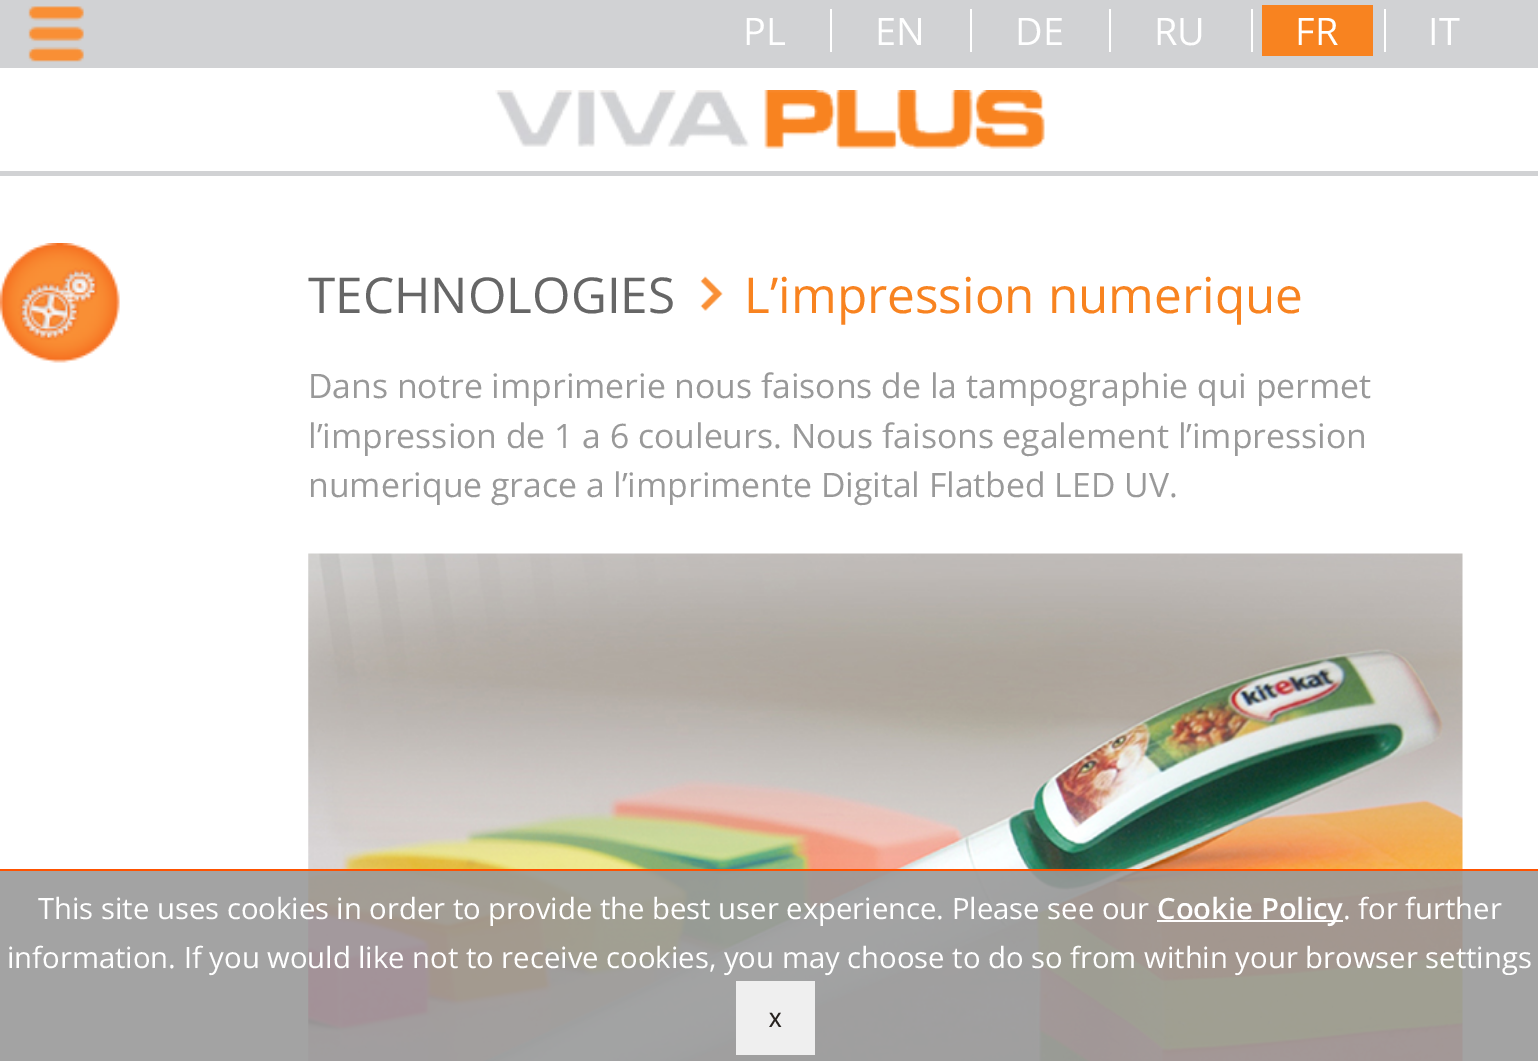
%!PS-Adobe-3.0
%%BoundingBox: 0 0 1538 1061
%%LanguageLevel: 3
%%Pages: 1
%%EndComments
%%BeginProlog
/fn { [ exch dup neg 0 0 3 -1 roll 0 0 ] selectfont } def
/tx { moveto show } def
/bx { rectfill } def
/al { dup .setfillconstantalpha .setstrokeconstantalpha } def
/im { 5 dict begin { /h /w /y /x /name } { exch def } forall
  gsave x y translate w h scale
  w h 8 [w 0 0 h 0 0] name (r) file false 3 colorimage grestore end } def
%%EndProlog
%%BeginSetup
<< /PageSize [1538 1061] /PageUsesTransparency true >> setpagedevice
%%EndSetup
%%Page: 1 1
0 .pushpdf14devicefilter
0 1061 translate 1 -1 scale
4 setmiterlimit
1 setgray
0 0 1538 1061 bx
0.82 0.824 0.831 setrgbcolor
0 0 1538 68 bx
(image0.raw) 28 6 56 56 im
1 setgray
830 9 2 43 bx
/OpenSans-Regular 38 fn
(PL) 743 45 tx
970 9 2 43 bx
(EN) 875 45 tx
1109 9 2 43 bx
(DE) 1015 45 tx
1251 9 2 43 bx
(RU) 1154 45 tx
1384 9 2 43 bx
0.973 0.514 0.125 setrgbcolor
1262 5 111 51 bx
1 setgray
(FR) 1295 45 tx
(IT) 1428 45 tx
0.82 0.824 0.831 setrgbcolor
0 171 1538 5 bx
(image1.raw) 495 90 550 59 im
(image2.raw) 0 243 120 120 im
/OpenSans-Regular 49.5 fn
0.4 setgray
(TECHNOLOGIES) 308 313 tx
(image3.raw) 700 276 23 35 im
0.973 0.514 0.125 setrgbcolor
(L’impression numerique) 744 313 tx
/OpenSans-Regular 33.75 fn
0.6 setgray
(Dans notre imprimerie nous faisons de la tampographie qui permet) 308 398 tx
(l’impression de 1 a 6 couleurs. Nous faisons egalement l’impression) 308 448 tx
(numerique grace a l’imprimente Digital Flatbed LED UV.) 308 497 tx
(image4.raw) 308 553 1155 508 im
0.9 al
0 871 1538 190 bx
1 al
1 0.322 0 setrgbcolor
0 869 1538 2 bx
/OpenSans-Regular 29.25 fn
1 setgray
(This site uses cookies in order to provide the best user experience. Please see our) 38 919 tx
1157 920 186 2 bx
/OpenSans-SemiBold 29.25 fn
(Cookie Policy) 1157 919 tx
/OpenSans-Regular 29.25 fn
(. for further) 1343 919 tx
(information. If you would like not to receive cookies, you may choose to do so from within your browser settings) 7 968 tx
0.937 setgray
736 981 79 74 bx
/OpenSans-SemiBold 20 fn
0.153 0.133 0.122 setrgbcolor
(X) 769 1027 tx
.poppdf14devicefilter showpage
%%EOF
